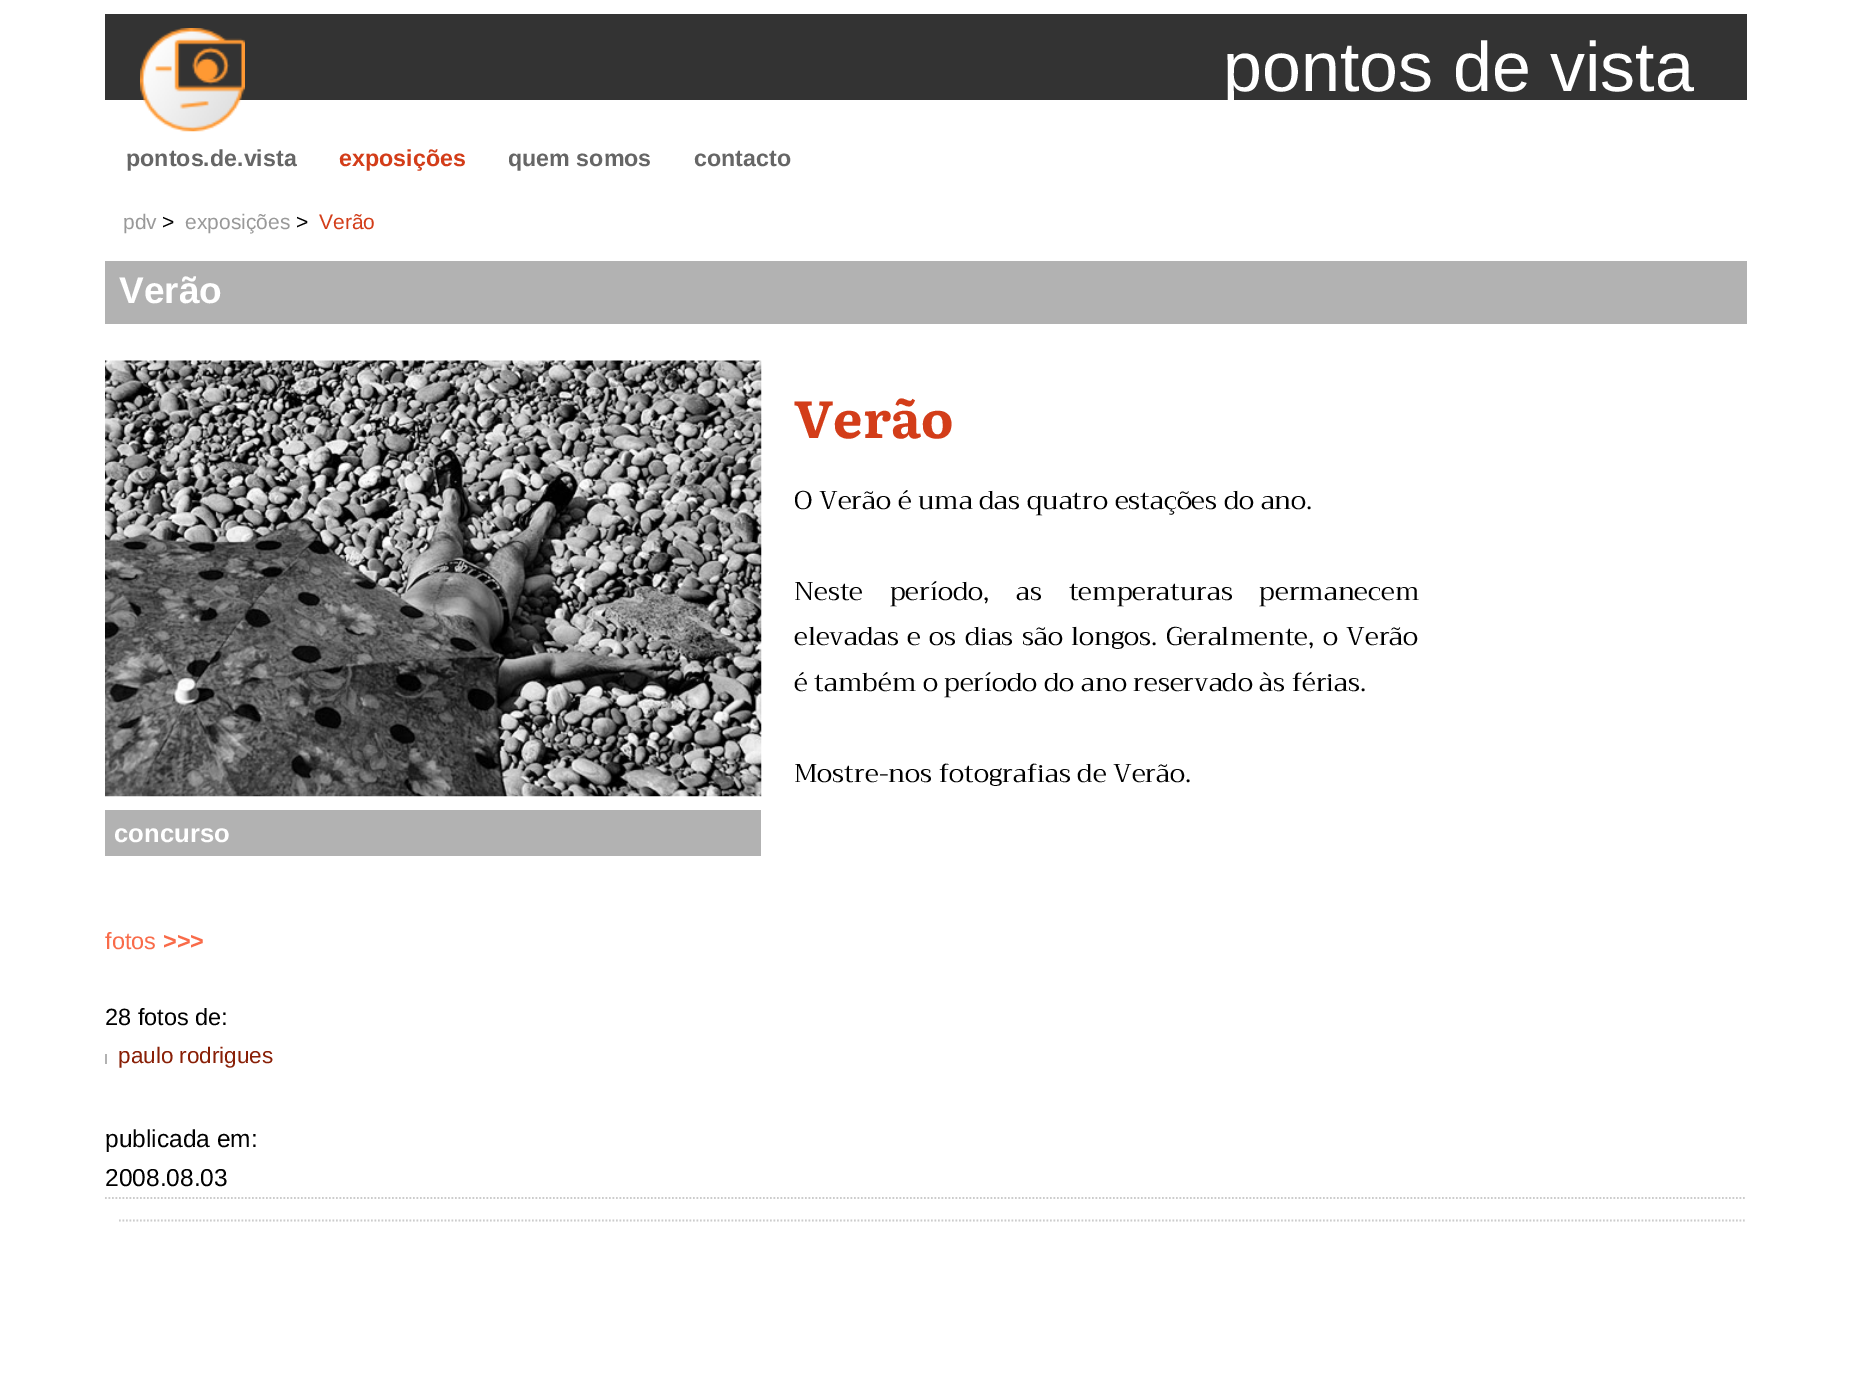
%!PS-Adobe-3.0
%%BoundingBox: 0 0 1850 1378
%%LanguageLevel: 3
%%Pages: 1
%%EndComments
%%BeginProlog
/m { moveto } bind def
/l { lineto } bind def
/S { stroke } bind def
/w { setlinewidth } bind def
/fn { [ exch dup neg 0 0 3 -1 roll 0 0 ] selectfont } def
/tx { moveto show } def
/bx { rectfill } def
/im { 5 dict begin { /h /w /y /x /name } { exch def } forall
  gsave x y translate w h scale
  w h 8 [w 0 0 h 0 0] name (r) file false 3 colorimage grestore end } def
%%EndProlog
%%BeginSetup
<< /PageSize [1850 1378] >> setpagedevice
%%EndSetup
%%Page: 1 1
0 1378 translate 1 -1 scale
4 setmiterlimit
1 setgray
0 0 1850 1378 bx
0.2 setgray
105 14 1642 86 bx
(image0.raw) 140 28 105 104 im
/LiberationSans-Regular 70 fn
1 setgray
(pontos de vista) 1223 91 tx
/LiberationSans-Bold 23.25 fn
0.4 setgray
(pontos.de.vista) 126 166 tx
0.827 0.239 0.098 setrgbcolor
(exposições) 339 166 tx
0.4 setgray
(quem somos) 508 166 tx
(contacto) 694 166 tx
/LiberationSans-Regular 21 fn
0.6 setgray
(pdv) 123 229 tx
0 setgray
(>) 162 229 tx
0.6 setgray
(exposições) 185 229 tx
0 setgray
(>) 296 229 tx
0.827 0.239 0.098 setrgbcolor
(Verão) 319 229 tx
0.698 setgray
105 261 1642 63 bx
/LiberationSans-Bold 37 fn
1 setgray
(Verão) 119 303 tx
/Literata-Bold 52 fn
0.827 0.239 0.098 setrgbcolor
(Verão) 794 438 tx
/Trirong-Regular 25.7 fn
0 setgray
(O Verão é uma das quatro estações do ano.) 794 509 tx
794 600 m 20 0 32 (Neste período, as temperaturas permanecem) widthshow
794 645 m 1.75 0 32 (elevadas e os dias são longos. Geralmente, o Verão) widthshow
(é também o período do ano reservado às férias.) 794 691 tx
(Mostre-nos fotografias de Verão.) 794 782 tx
(image1.raw) 105 360 657 437 im
0.698 setgray
105 810 656 46 bx
/LiberationSans-Bold 25.7 fn
1 setgray
(concurso) 114 842 tx
/LiberationSans-Regular 23.5 fn
0.976 0.42 0.286 setrgbcolor
(fotos) 105 949 tx
/LiberationSans-Bold 23.5 fn
(>>>) 163 949 tx
/LiberationSans-Regular 23.5 fn
0 setgray
(28 fotos de:) 105 1025 tx
0.698 setgray
105 1054 2 10 bx
/LiberationSans-Regular 22.5 fn
0.537 0.122 0.024 setrgbcolor
(paulo rodrigues) 118 1063 tx
/LiberationSans-Regular 24.5 fn
0 setgray
(publicada em:) 105 1147 tx
(2008.08.03) 105 1186 tx
0.8 setgray
1.8 w
[1.75 1.75] 0 setdash
105 1198 m 1746.5 1198 l S
119 1220.5 m 1746.5 1220.5 l S
showpage
%%EOF
